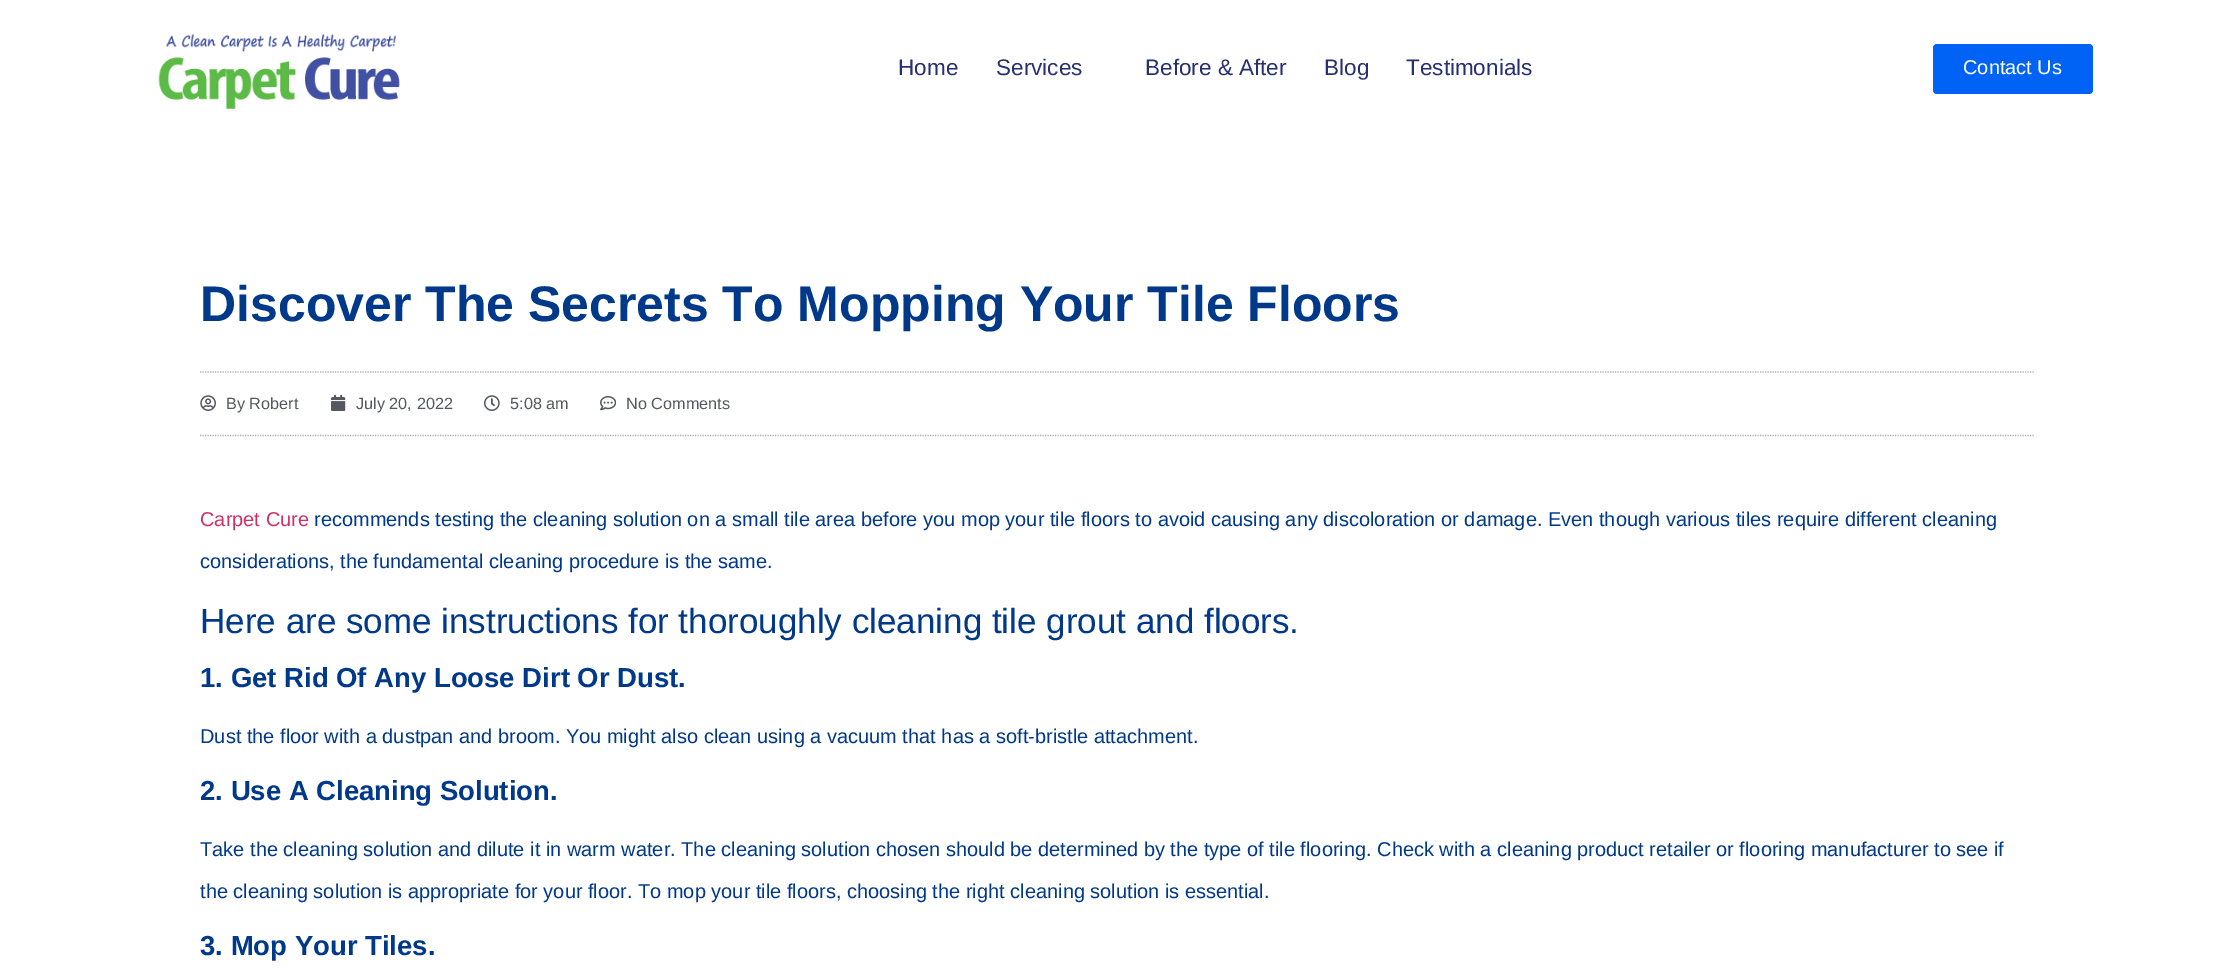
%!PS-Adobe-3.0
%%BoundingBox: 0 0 2235 976
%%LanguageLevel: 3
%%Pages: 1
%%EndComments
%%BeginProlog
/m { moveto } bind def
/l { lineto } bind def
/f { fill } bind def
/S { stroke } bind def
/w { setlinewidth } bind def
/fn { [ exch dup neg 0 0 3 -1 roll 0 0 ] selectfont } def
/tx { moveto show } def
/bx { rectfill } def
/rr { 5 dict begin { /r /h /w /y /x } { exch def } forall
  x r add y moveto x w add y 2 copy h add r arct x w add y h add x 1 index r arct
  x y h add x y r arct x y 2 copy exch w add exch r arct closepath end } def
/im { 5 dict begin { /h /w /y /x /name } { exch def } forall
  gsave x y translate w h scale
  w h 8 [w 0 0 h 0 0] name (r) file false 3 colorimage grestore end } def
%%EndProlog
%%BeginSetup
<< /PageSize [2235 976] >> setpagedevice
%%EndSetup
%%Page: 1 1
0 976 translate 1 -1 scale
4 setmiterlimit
1 setgray
0 0 2235 976 bx
(image0.raw) 158 33 242 76 im
/LiberationSans-Regular 22.5 fn
0.153 0.192 0.443 setrgbcolor
(Home) 898 75 tx
(Services) 996 75 tx
(Before & After) 1145 75 tx
(Blog) 1324 75 tx
(Testimonials) 1406 75 tx
0 0.388 0.965 setrgbcolor
1933 44 160 50 4 rr f
/LiberationSans-Regular 20 fn
1 setgray
(Contact Us) 1963 74 tx
/LiberationSans-Bold 50 fn
0 0.22 0.541 setrgbcolor
(Discover The Secrets To Mopping Your Tile Floors) 200 321 tx
0.686 setgray
1.2 w
[1.25 1.25] 0 setdash
200 372 m 2035 372 l S
200 435.5 m 2035 435.5 l S
(image1.raw) 200 395 16 16 im
/LiberationSans-Regular 16.25 fn
0.329 0.349 0.373 setrgbcolor
(By Robert) 226 409 tx
(image2.raw) 331 395 15 16 im
(July 20, 2022) 356 409 tx
(image3.raw) 484 395 16 16 im
(5:08 am) 510 409 tx
(image4.raw) 600 396 16 15 im
(No Comments) 626 409 tx
/LiberationSans-Regular 20 fn
0.8 0.2 0.4 setrgbcolor
(Carpet Cure) 200 526 tx
0 0.22 0.541 setrgbcolor
(recommends testing the cleaning solution on a small tile area before you mop your tile floors to avoid causing any discoloration or damage. Even though various tiles require different cleaning) 314 526 tx
(considerations, the fundamental cleaning procedure is the same.) 200 568 tx
/LiberationSans-Regular 35 fn
(Here are some instructions for thoroughly cleaning tile grout and floors.) 200 633 tx
/LiberationSans-Bold 27.5 fn
(1. Get Rid Of Any Loose Dirt Or Dust.) 200 687 tx
/LiberationSans-Regular 20 fn
(Dust the floor with a dustpan and broom. You might also clean using a vacuum that has a soft-bristle attachment.) 200 743 tx
/LiberationSans-Bold 27.5 fn
(2. Use A Cleaning Solution.) 200 800 tx
/LiberationSans-Regular 20 fn
(Take the cleaning solution and dilute it in warm water. The cleaning solution chosen should be determined by the type of tile flooring. Check with a cleaning product retailer or flooring manufacturer to see if) 200 856 tx
(the cleaning solution is appropriate for your floor. To mop your tile floors, choosing the right cleaning solution is essential.) 200 898 tx
/LiberationSans-Bold 27.5 fn
(3. Mop Your Tiles.) 200 955 tx
showpage
%%EOF
